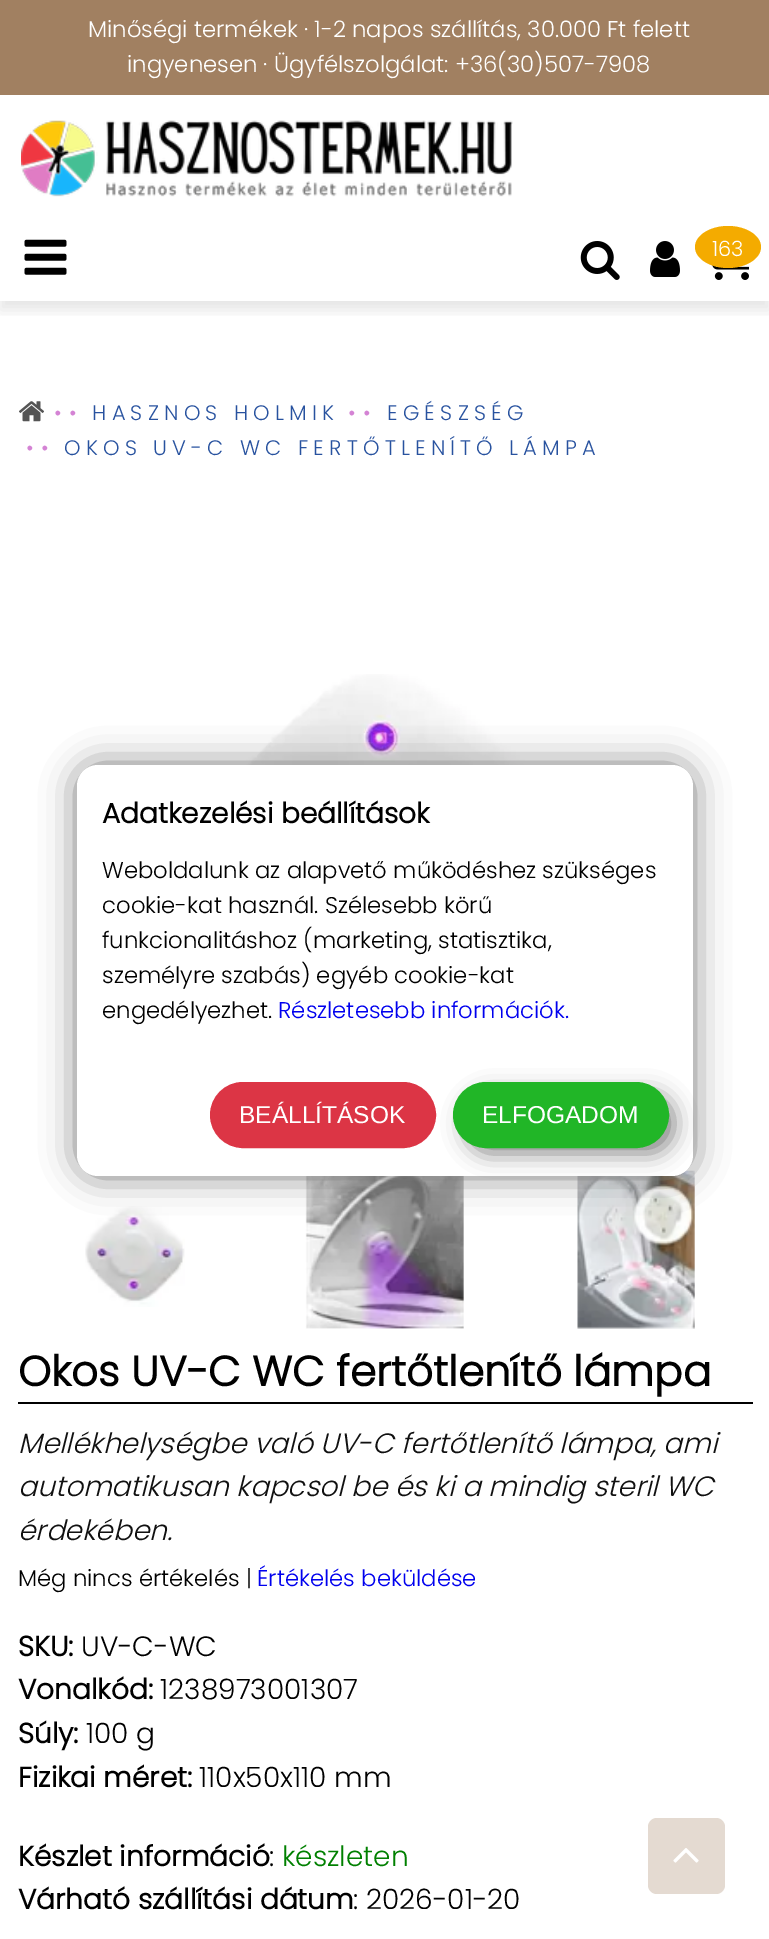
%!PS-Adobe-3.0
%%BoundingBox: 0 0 769 1939
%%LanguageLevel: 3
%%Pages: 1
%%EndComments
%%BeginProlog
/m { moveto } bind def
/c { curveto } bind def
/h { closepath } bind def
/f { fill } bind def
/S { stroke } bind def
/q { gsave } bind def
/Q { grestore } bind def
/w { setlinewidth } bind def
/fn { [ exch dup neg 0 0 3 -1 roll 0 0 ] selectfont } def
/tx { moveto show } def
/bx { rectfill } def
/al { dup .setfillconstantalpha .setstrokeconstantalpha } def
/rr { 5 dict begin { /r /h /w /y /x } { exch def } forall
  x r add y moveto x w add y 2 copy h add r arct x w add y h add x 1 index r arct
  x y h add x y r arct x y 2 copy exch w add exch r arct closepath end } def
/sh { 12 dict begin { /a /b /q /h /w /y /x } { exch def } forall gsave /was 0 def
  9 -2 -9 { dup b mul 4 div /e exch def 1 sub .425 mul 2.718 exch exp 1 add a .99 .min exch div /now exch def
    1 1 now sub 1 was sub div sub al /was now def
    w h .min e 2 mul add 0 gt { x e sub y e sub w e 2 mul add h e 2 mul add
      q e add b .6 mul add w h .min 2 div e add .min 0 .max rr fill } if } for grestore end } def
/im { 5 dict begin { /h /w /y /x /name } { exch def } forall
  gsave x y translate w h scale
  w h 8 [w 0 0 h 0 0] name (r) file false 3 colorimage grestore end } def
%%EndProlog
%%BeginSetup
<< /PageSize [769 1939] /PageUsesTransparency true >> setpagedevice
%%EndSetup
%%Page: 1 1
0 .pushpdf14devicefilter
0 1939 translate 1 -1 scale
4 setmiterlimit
1 setgray
0 0 769 1939 bx
0.631 0.502 0.38 setrgbcolor
0 0 769 95 bx
/Poppins-Light 22.75 fn
1 setgray
(Minőségi termékek · 1-2 napos szállítás, 30.000 Ft felett) 88 37 tx
(ingyenesen · Ügyfélszolgálat: +36\(30\)507-7908) 127 72 tx
q
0 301 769 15 rectclip
0 setgray
0 226 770 84 0 7 0.1 sh
Q
(image0.raw) 24 239 43 36 im
(image1.raw) 21 120 492 77 im
(image2.raw) 580 241 40 39 im
(image3.raw) 650 241 30 36 im
(image4.raw) 712 265 37 15 im
0.957 0.671 0 setrgbcolor
728 226 m 746 226 761 235.5 761 247 c 761 258.5 746 268 728 268 c 710 268 695 258.5 695 247 c 695 235.5 710 226 728 226 c h f
/Poppins-Light 21 fn
1 setgray
(163) 712 256 tx
(image5.raw) 19 401 25 21 im
0.831 0.514 0.831 setrgbcolor
54 420 m 7 0 (••) ashow
0.157 0.322 0.624 setrgbcolor
92 420 m 5.25 0 (HASZNOS HOLMIK) ashow
0.831 0.514 0.831 setrgbcolor
348 420 m 7 0 (••) ashow
0.157 0.322 0.624 setrgbcolor
387 420 m 5.25 0 (EGÉSZSÉG) ashow
0.831 0.514 0.831 setrgbcolor
26 455 m 7 0 (••) ashow
0.157 0.322 0.624 setrgbcolor
64 455 m 5.25 0 (OKOS UV-C WC FERTŐTLENÍTŐ LÁMPA) ashow
(image6.raw) 196 674 379 91 im
(image7.raw) 85 1206 100 101 im
(image8.raw) 305 1176 159 153 im
(image9.raw) 577 1170 118 159 im
0 setgray
18 1402 735 2 bx
/Poppins-Bold 42 fn
(Okos UV-C WC fertőtlenítő lámpa) 18 1386 tx
/Poppins-LightItalic 28 fn
0.067 setgray
(Mellékhelységbe való UV-C fertőtlenítő lámpa, ami) 18 1453 tx
(automatikusan kapcsol be és ki a mindig steril WC) 18 1496 tx
(érdekében.) 18 1540 tx
/Poppins-Light 22.75 fn
0 setgray
(Még nincs értékelés |) 18 1586 tx
0 0 0.933 setrgbcolor
(Értékelés beküldése) 257 1586 tx
/Poppins-Bold 28 fn
0 setgray
(SKU:) 18 1656 tx
/Poppins-Light 28 fn
(UV-C-WC) 81 1656 tx
/Poppins-Bold 28 fn
(Vonalkód:) 18 1699 tx
/Poppins-Light 28 fn
(1238973001307) 160 1699 tx
/Poppins-Bold 28 fn
(Súly:) 18 1743 tx
/Poppins-Light 28 fn
(100 g) 86 1743 tx
/Poppins-Bold 28 fn
(Fizikai méret:) 18 1787 tx
/Poppins-Light 28 fn
(110x50x110 mm) 199 1787 tx
/Poppins-Bold 28 fn
(Készlet információ) 18 1866 tx
/Poppins-Light 28 fn
(:) 269 1866 tx
0 0.502 0 setrgbcolor
(készleten) 282 1866 tx
/Poppins-Bold 28 fn
0 setgray
(Várható szállítási dátum) 18 1909 tx
/Poppins-Light 28 fn
(: 2026-01-20) 353 1909 tx
0.478 setgray
77 765 616 411 21 17.5 1 sh
1 setgray
77 765 616 411 21 rr f
/Poppins-Bold 28 fn
0 setgray
(Adatkezelési beállítások) 102 823 tx
/Poppins-Light 22.75 fn
(Weboldalunk az alapvető működéshez szükséges) 102 878 tx
(cookie-kat használ. Szélesebb körű) 102 913 tx
(funkcionalitáshoz \(marketing, statisztika,) 102 948 tx
(személyre szabás\) egyéb cookie-kat) 102 983 tx
(engedélyezhet.) 102 1018 tx
0 0 0.933 setrgbcolor
(Részletesebb információk.) 278 1018 tx
0.863 0.208 0.271 setrgbcolor
211 1083 224 64 32 rr q f Q
2 w
S
/LiberationSans-Regular 24.5 fn
1 setgray
(BEÁLLÍTÁSOK) 239 1123 tx
0 setgray
466 1094 208 59 29.5 11.5 0.49 sh
0.129 0.714 0.153 setrgbcolor
454 1083 214 64 32 rr q f Q
S
1 setgray
(ELFOGADOM) 482 1123 tx
0.894 0.855 0.82 setrgbcolor
648 1818 77 76 9 rr f
(image10.raw) 673 1848 26 15 im
.poppdf14devicefilter showpage
%%EOF
